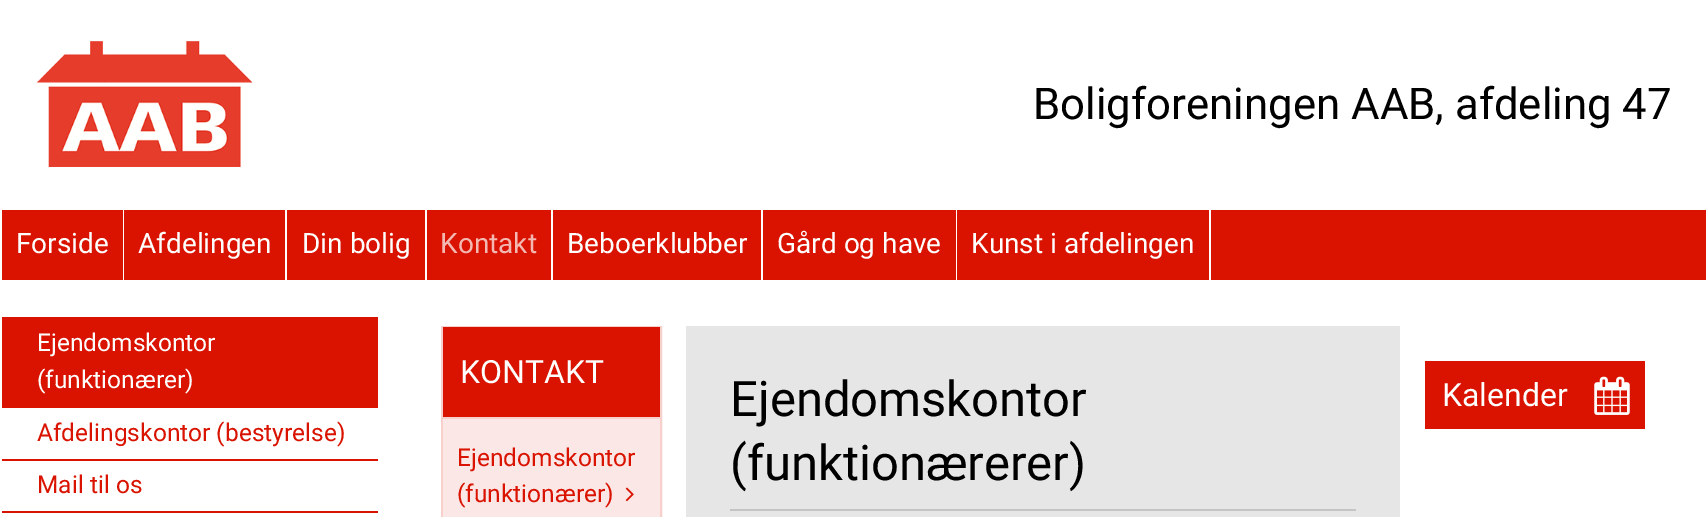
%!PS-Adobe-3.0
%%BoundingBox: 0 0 1707 517
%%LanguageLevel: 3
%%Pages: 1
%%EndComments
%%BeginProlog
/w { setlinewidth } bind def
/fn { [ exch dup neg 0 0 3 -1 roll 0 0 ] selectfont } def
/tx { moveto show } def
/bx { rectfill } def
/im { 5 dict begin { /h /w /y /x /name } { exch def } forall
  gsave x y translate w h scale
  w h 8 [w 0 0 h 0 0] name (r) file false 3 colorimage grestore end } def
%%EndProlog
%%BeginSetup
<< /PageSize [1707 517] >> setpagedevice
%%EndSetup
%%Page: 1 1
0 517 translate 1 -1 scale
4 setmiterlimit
1 setgray
0 0 1707 517 bx
(image0.raw) 36 41 217 126 im
/Roboto-Regular 43.75 fn
0 setgray
(Boligforeningen AAB, afdeling 47) 1033 119 tx
0.851 0.075 0 setrgbcolor
2 210 1704 70 bx
1 setgray
123 210 1 70 bx
/Roboto-Regular 28 fn
(Forside) 16 253 tx
285 210 2 70 bx
(Afdelingen) 138 253 tx
425 210 2 70 bx
(Din bolig) 302 253 tx
551 210 2 70 bx
0.957 0.722 0.702 setrgbcolor
(Kontakt) 440 253 tx
1 setgray
761 210 2 70 bx
(Beboerklubber) 567 253 tx
956 210 1 70 bx
(Gård og have) 777 253 tx
1209 210 2 70 bx
(Kunst i afdelingen) 971 253 tx
0.851 0.075 0 setrgbcolor
2 511 376 2 bx
2 317 376 91 bx
/Roboto-Regular 24.5 fn
1 setgray
(Ejendomskontor) 37 351 tx
(\(funktionærer\)) 37 388 tx
0.851 0.075 0 setrgbcolor
(Afdelingskontor \(bestyrelse\)) 37 441 tx
2 459 376 2 bx
(Mail til os) 37 493 tx
0.969 0.816 0.8 setrgbcolor
2 w
442 327 219 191 rectstroke
0.851 0.075 0 setrgbcolor
443 327 217 90 bx
/Roboto-Regular 32 fn
1 setgray
(KONTAKT) 460 383 tx
0.984 0.906 0.902 setrgbcolor
443 419 217 98 bx
0.969 0.816 0.8 setrgbcolor
443 417 217 2 bx
/Roboto-Regular 24.5 fn
0.851 0.075 0 setrgbcolor
(Ejendomskontor) 457 466 tx
(\(funktionærer\)) 457 502 tx
(image1.raw) 625 487 9 15 im
0.902 setgray
686 326 714 191 bx
/Roboto-Regular 49 fn
0 setgray
(Ejendomskontor) 730 416 tx
(\(funktionærerer\)) 730 480 tx
0.769 setgray
730 509 626 2 bx
0.851 0.075 0 setrgbcolor
1425 361 220 68 bx
/Roboto-Regular 32 fn
1 setgray
(Kalender) 1442 406 tx
(image2.raw) 1594 376 36 39 im
showpage
%%EOF
